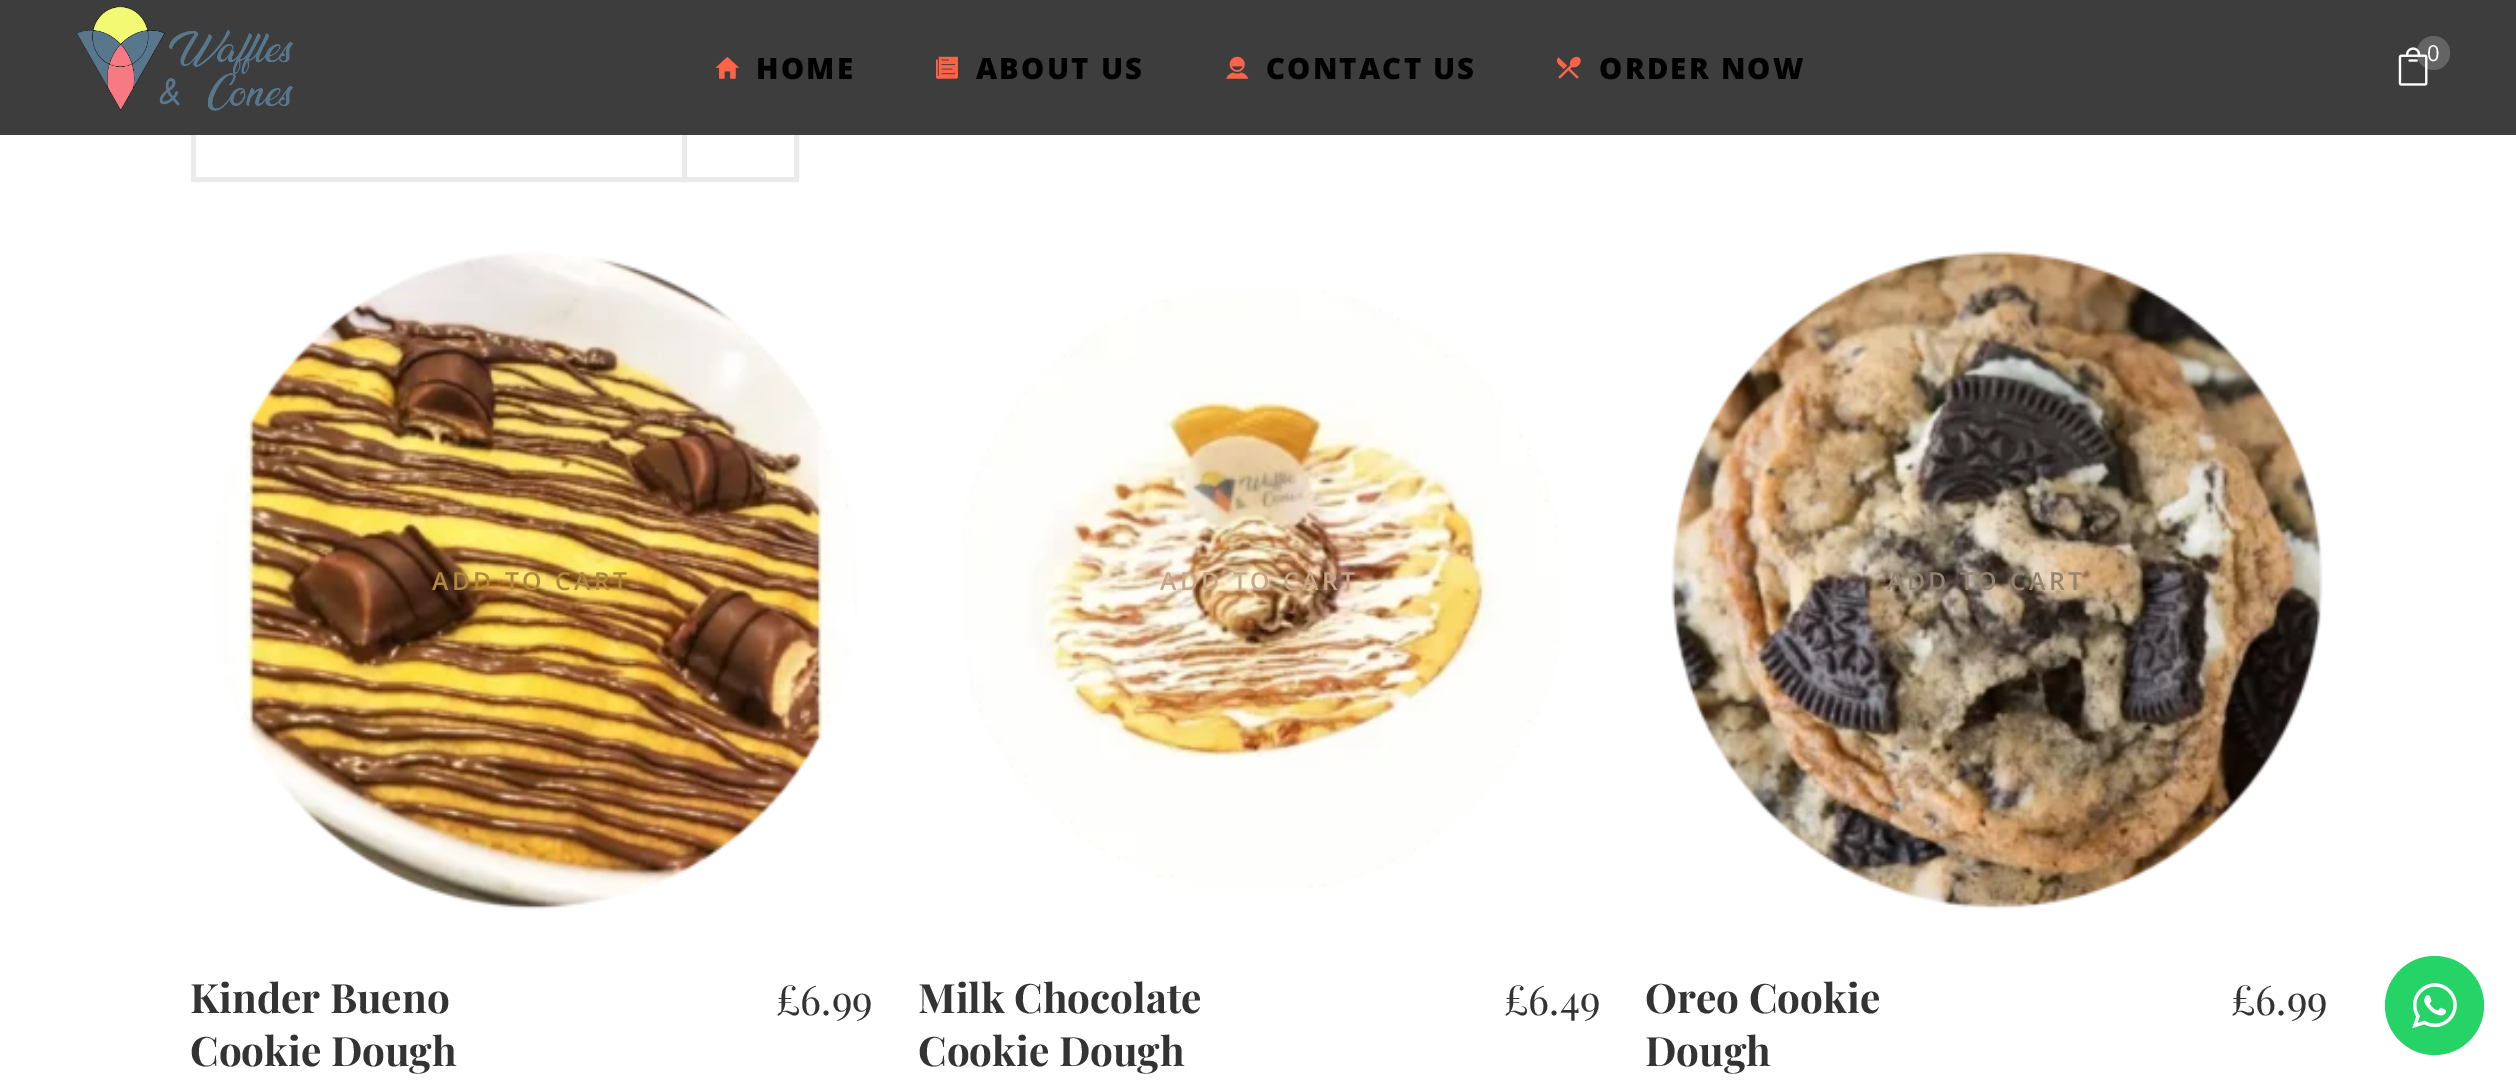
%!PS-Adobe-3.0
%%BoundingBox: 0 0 2516 1089
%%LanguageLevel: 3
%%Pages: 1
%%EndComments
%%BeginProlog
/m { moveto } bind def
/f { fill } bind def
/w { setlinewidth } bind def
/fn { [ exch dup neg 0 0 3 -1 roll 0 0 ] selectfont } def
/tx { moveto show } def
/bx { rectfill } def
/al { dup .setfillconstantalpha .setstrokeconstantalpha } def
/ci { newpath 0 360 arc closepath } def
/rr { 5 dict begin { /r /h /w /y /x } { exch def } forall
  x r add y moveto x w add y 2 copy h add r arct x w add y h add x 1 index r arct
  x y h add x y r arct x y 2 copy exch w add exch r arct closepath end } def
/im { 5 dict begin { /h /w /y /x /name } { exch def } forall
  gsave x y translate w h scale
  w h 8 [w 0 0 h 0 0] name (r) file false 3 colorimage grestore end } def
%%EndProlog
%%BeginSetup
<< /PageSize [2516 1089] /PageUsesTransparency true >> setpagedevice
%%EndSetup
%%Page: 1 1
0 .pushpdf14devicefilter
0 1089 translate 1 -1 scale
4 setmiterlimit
1 setgray
0 0 2516 1089 bx
0.922 setgray
5 w
193.5 70.5 603 109 rectstroke
0.239 setgray
0 0 2516 135 bx
(image0.raw) 76 6 217 105 im
(image1.raw) 2398 47 30 39 im
0.2 al
1 setgray
2417 36 33 34 16.5 rr f
/OpenSans-Regular 22 fn
1 al
(0) 2427 61 tx
(image2.raw) 715 56 25 23 im
/OpenSans-ExtraBold 29.25 fn
0 setgray
756 79 m 2.25 0 (HOME) ashow
(image3.raw) 936 56 22 23 im
976 79 m 2.25 0 (ABOUT US) ashow
(image4.raw) 1226 56 23 23 im
1266 79 m 2.25 0 (CONTACT US) ashow
(image5.raw) 1557 56 24 23 im
1599 79 m 2.25 0 (ORDER NOW) ashow
0.922 setgray
682 135 5 47 bx
(image6.raw) 214 252 643 658 im
/OpenSans-SemiBold 24.75 fn
0.686 0.537 0.235 setrgbcolor
432 590 m 3.4 0 (ADD TO CART) ashow
/PlayfairDisplay-Bold 40.5 fn
0.2 setgray
(Kinder Bueno) 190 1013 tx
(Cookie Dough) 190 1066 tx
/PlayfairDisplay-Regular 40.5 fn
(£6.99) 776 1015 tx
(image7.raw) 962 289 599 601 im
/OpenSans-SemiBold 24.75 fn
0.78 0.651 0.529 setrgbcolor
1160 590 m 3.4 0 (ADD TO CART) ashow
/PlayfairDisplay-Bold 40.5 fn
0.2 setgray
(Milk Chocolate) 918 1013 tx
(Cookie Dough) 918 1066 tx
/PlayfairDisplay-Regular 40.5 fn
(£6.49) 1504 1015 tx
(image8.raw) 1671 251 652 659 im
/OpenSans-SemiBold 24.75 fn
0.576 0.514 0.439 setrgbcolor
1887 590 m 3.4 0 (ADD TO CART) ashow
/PlayfairDisplay-Bold 40.5 fn
0.2 setgray
(Oreo Cookie) 1645 1013 tx
(Dough) 1645 1066 tx
/PlayfairDisplay-Regular 40.5 fn
(£6.99) 2231 1015 tx
0.145 0.827 0.4 setrgbcolor
2434.5 1005.5 49.5 ci f
(image9.raw) 2412 983 45 45 im
.poppdf14devicefilter showpage
%%EOF
